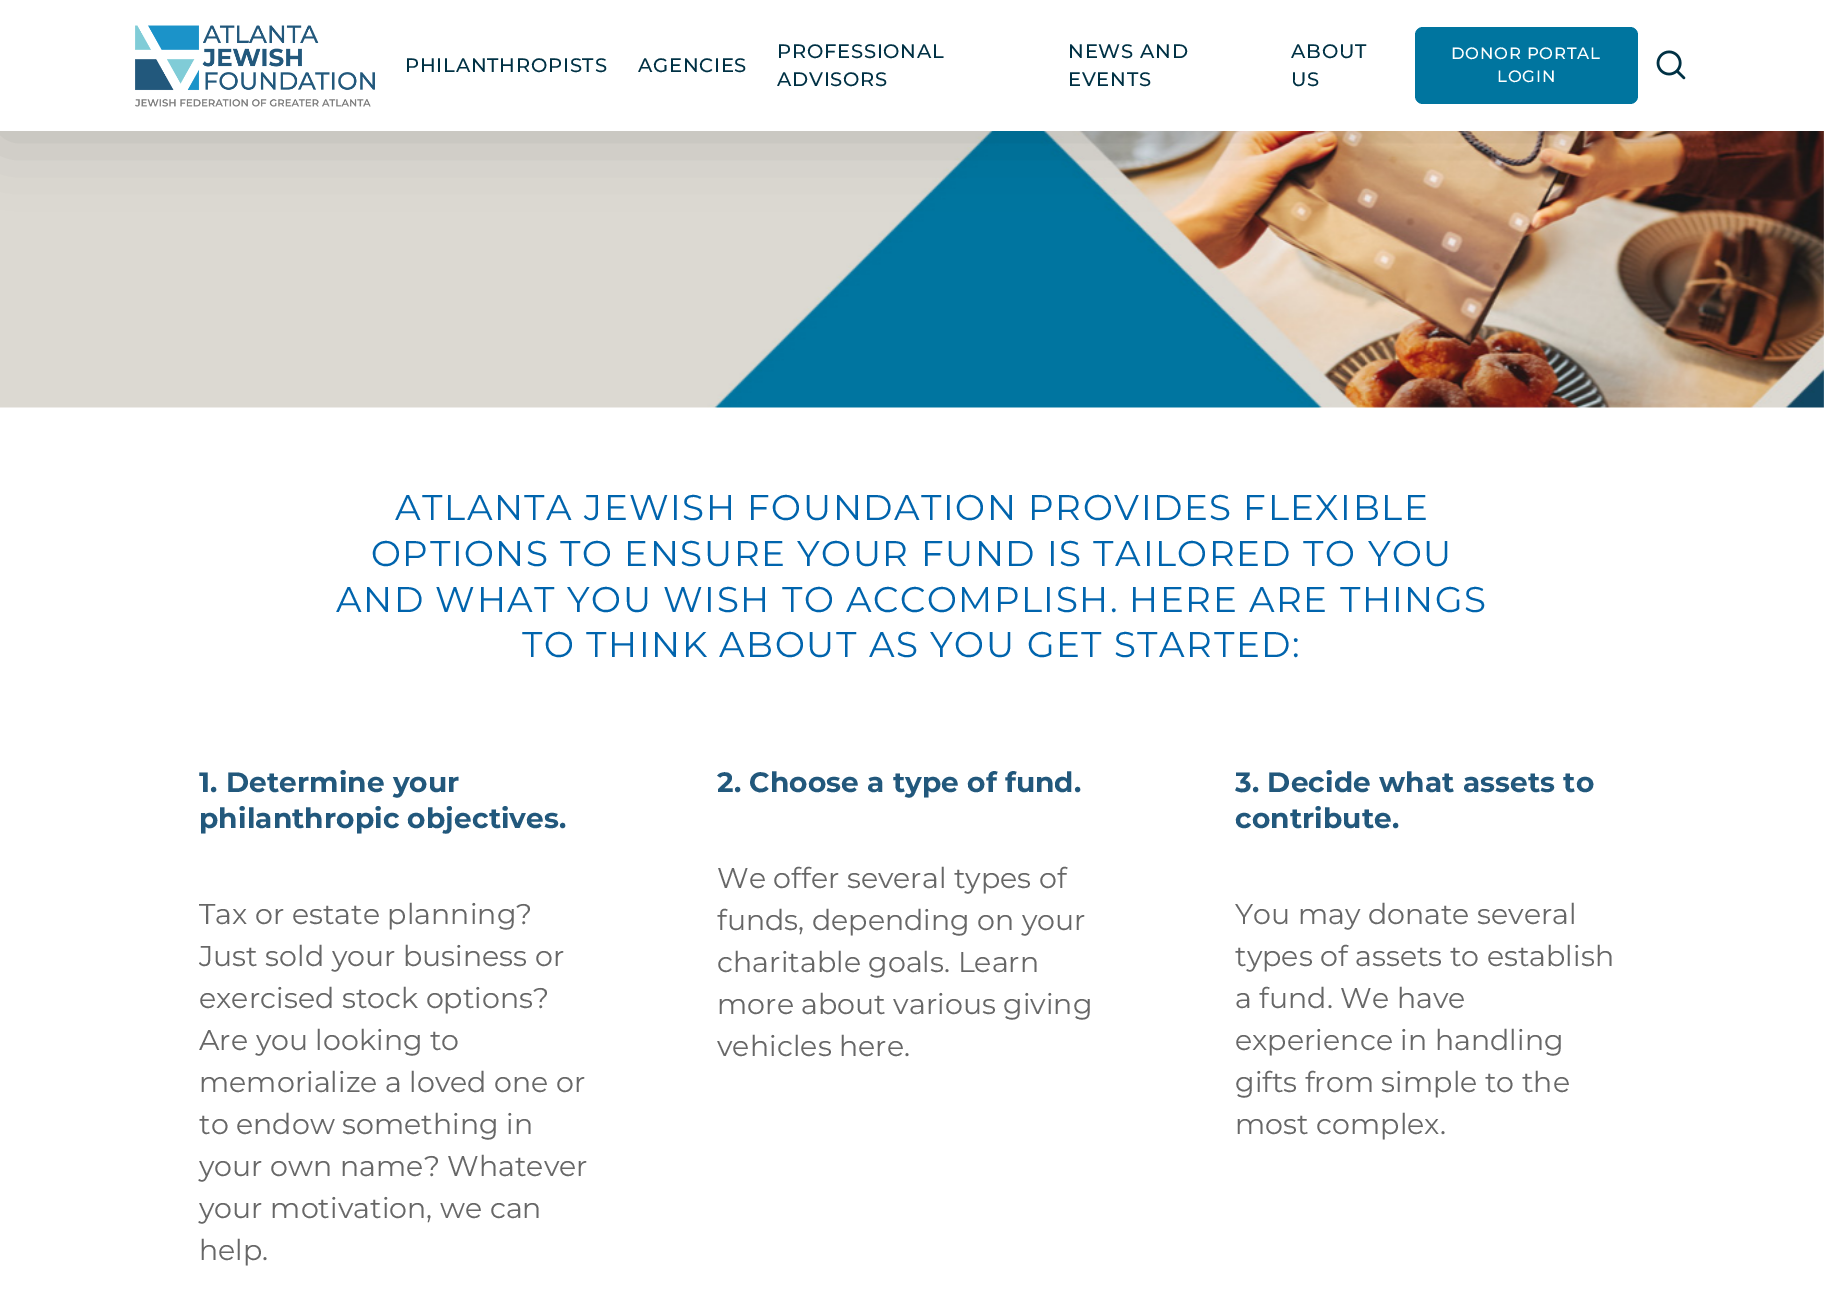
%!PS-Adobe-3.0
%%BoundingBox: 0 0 1824 1293
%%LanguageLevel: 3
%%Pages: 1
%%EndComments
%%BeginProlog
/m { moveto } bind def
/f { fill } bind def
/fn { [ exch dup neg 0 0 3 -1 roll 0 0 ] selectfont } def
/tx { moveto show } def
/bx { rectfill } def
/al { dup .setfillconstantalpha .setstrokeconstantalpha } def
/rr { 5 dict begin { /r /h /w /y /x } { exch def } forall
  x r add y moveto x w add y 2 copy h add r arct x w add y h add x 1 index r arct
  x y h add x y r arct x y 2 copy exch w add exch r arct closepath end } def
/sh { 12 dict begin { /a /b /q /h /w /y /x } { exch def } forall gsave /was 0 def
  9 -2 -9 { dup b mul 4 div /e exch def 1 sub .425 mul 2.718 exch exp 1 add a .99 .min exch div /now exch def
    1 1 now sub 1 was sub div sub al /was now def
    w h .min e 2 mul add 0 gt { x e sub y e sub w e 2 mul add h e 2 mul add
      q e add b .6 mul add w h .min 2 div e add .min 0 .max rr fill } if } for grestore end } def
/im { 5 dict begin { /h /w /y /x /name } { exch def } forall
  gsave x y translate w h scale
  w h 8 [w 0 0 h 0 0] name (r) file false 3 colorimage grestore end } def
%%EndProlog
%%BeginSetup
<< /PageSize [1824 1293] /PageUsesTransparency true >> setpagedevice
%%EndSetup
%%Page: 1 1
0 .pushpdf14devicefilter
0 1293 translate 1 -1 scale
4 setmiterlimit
1 setgray
0 0 1824 1293 bx
(image2.raw) 0 131 1824 277 im
0 setgray
0 -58 1824 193 0 34 0.15 sh
1 setgray
0 0 1824 131 bx
(image0.raw) 135 25 240 82 im
/Montserrat-Medium 19.5 fn
0 0.192 0.267 setrgbcolor
405 72 m 0.75 0 (PHILANTHROPISTS) ashow
638 72 m 0.75 0 (AGENCIES) ashow
777 58 m 0.75 0 (PROFESSIONAL) ashow
777 86 m 0.75 0 (ADVISORS) ashow
1068 58 m 0.75 0 (NEWS AND) ashow
1068 86 m 0.75 0 (EVENTS) ashow
1291 58 m 0.75 0 (ABOUT) ashow
1291 86 m 0.75 0 (US) ashow
0 0.459 0.624 setrgbcolor
1415 27 223 77 8 rr f
/Montserrat-Medium 16.5 fn
1 setgray
1451 59 m 0.75 0 (DONOR PORTAL) ashow
1497 82 m 0.75 0 (LOGIN) ashow
(image1.raw) 1656 50 30 30 im
/Montserrat-Regular 35.7 fn
0 0.392 0.678 setrgbcolor
395 520 m 1.5 0 (ATLANTA JEWISH FOUNDATION PROVIDES FLEXIBLE) ashow
371 566 m 1.5 0 (OPTIONS TO ENSURE YOUR FUND IS TAILORED TO YOU) ashow
336 612 m 1.5 0 (AND WHAT YOU WISH TO ACCOMPLISH. HERE ARE THINGS) ashow
522 657 m 1.5 0 (TO THINK ABOUT AS YOU GET STARTED:) ashow
/Montserrat-Bold 28 fn
0.133 0.345 0.486 setrgbcolor
199 792 m 0.15 0 (1. Determine your) ashow
199 828 m 0.15 0 (philanthropic objectives.) ashow
/Montserrat-Regular 28.5 fn
0.404 setgray
(Tax or estate planning?) 199 924 tx
(Just sold your business or) 199 966 tx
(exercised stock options?) 199 1008 tx
(Are you looking to) 199 1050 tx
(memorialize a loved one or) 199 1092 tx
(to endow something in) 199 1134 tx
(your own name? Whatever) 199 1176 tx
(your motivation, we can) 199 1218 tx
(help.) 199 1260 tx
/Montserrat-Bold 28 fn
0.133 0.345 0.486 setrgbcolor
717 792 m 0.15 0 (2. Choose a type of fund.) ashow
/Montserrat-Regular 28.5 fn
0.404 setgray
(We offer several types of) 717 888 tx
(funds, depending on your) 717 930 tx
(charitable goals. Learn) 717 972 tx
(more about various giving) 717 1014 tx
(vehicles here.) 717 1056 tx
/Montserrat-Bold 28 fn
0.133 0.345 0.486 setrgbcolor
1235 792 m 0.15 0 (3. Decide what assets to) ashow
1235 828 m 0.15 0 (contribute.) ashow
/Montserrat-Regular 28.5 fn
0.404 setgray
(You may donate several) 1235 924 tx
(types of assets to establish) 1235 966 tx
(a fund. We have) 1235 1008 tx
(experience in handling) 1235 1050 tx
(gifts from simple to the) 1235 1092 tx
(most complex.) 1235 1134 tx
.poppdf14devicefilter showpage
%%EOF
